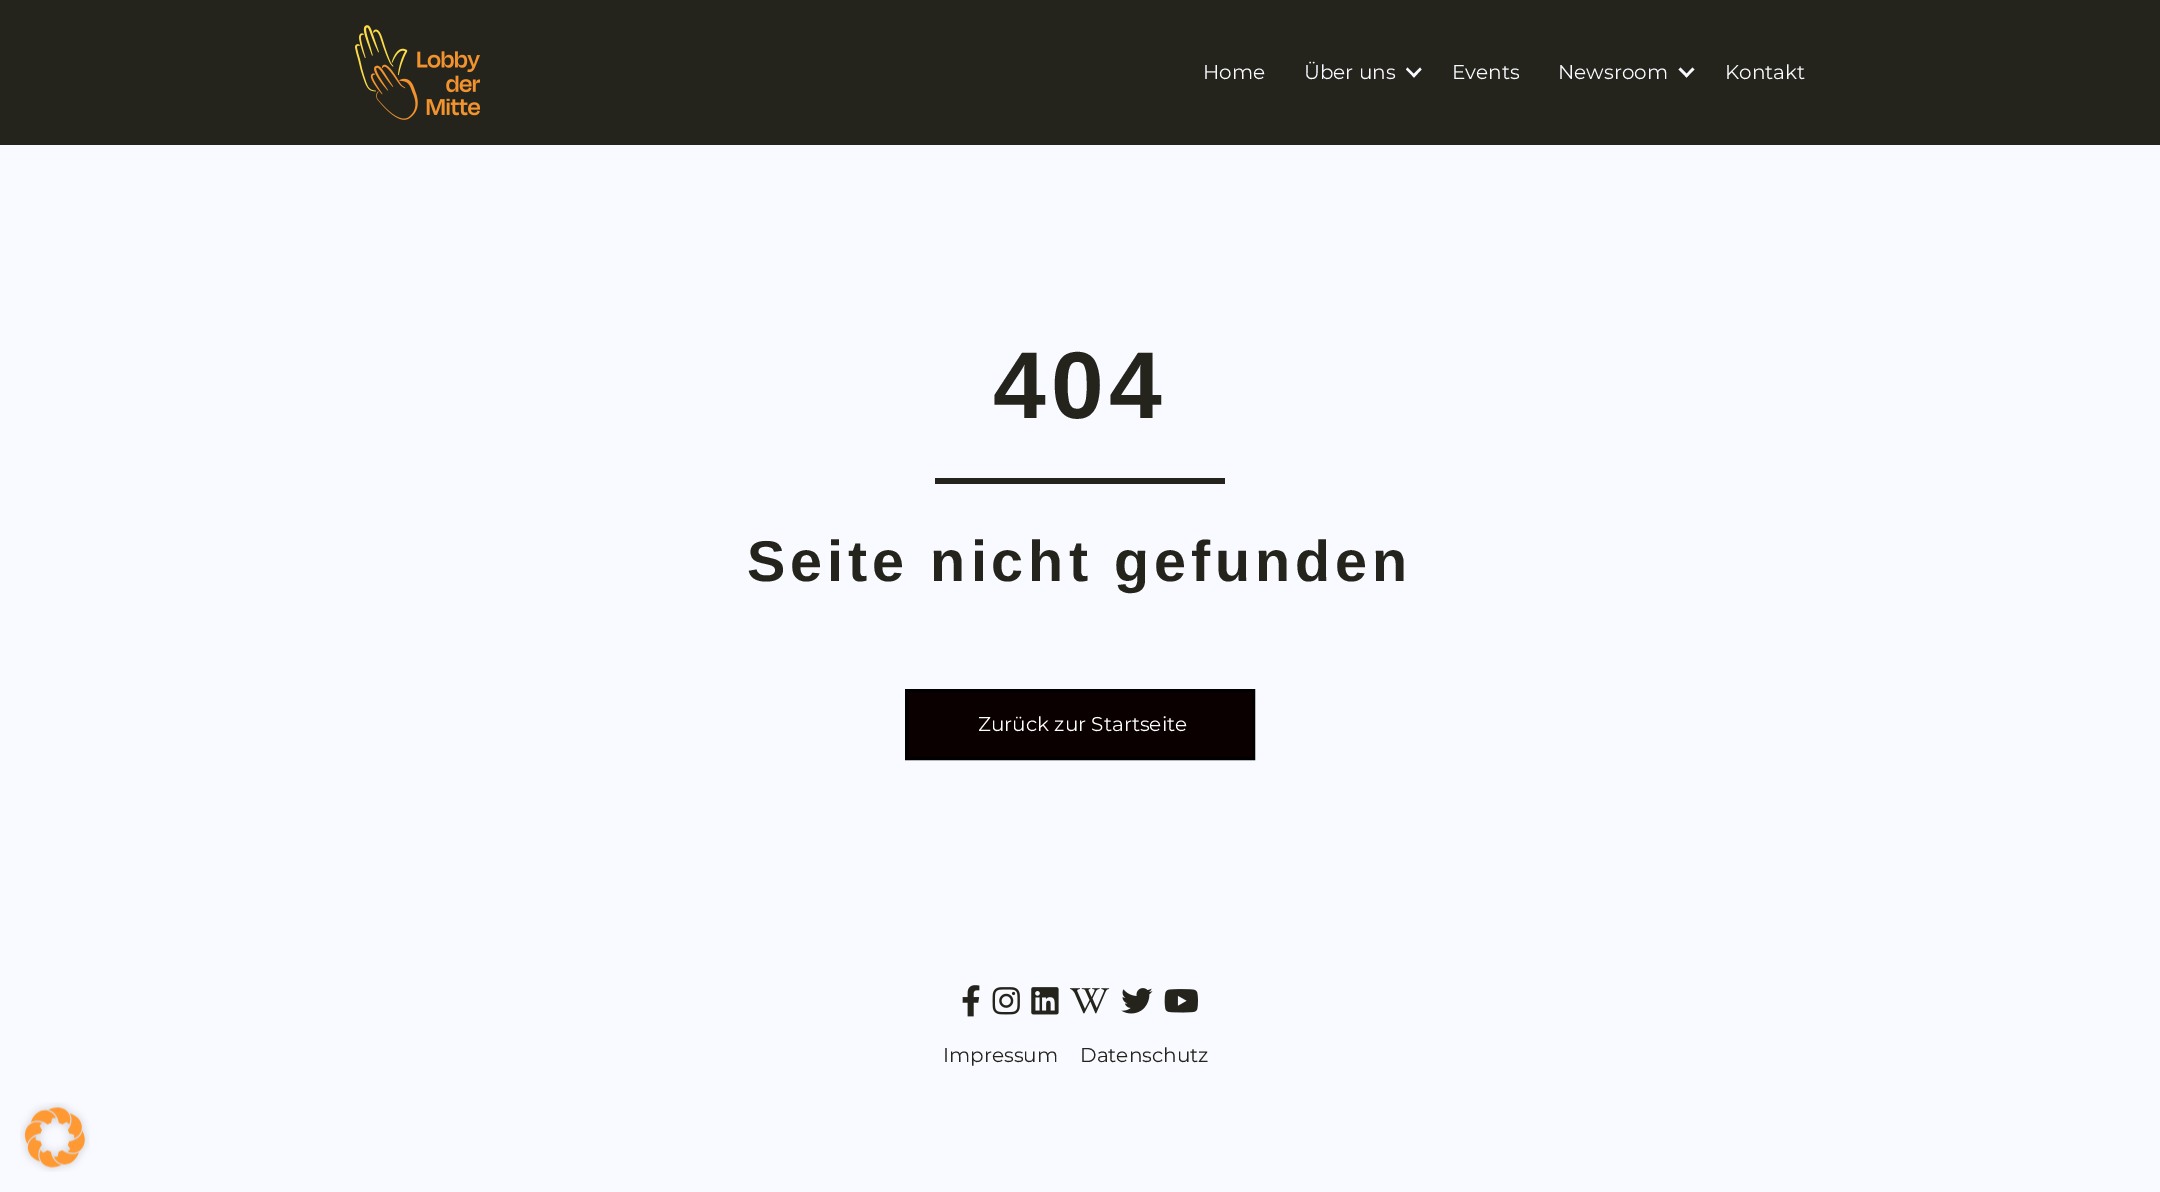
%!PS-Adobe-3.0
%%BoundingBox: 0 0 2160 1192
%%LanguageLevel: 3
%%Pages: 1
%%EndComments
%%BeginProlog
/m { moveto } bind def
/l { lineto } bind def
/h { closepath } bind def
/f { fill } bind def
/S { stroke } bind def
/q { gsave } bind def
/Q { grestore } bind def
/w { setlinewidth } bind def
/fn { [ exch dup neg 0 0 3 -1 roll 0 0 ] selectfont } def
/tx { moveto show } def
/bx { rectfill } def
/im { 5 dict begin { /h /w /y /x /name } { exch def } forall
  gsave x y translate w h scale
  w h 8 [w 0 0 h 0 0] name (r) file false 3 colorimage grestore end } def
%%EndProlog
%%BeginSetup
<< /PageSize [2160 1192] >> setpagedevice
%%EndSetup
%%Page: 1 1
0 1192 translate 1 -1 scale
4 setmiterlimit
0.976 0.98 1 setrgbcolor
0 0 2160 1192 bx
0.141 0.141 0.114 setrgbcolor
0 0 2160 145 bx
(image0.raw) 355 25 125 95 im
/Montserrat-Regular 20 fn
0.976 0.98 1 setrgbcolor
(Home) 1203 79 tx
(Über uns) 1304 79 tx
1420 67.5 m 1421.5 69.5 l 1414 77.5 l 1412 75.5 l h f
1407.5 67.5 m 1415.5 75.5 l 1414 77.5 l 1406 69.5 l h f
(Events) 1452 79 tx
(Newsroom) 1558 79 tx
1692.5 67.5 m 1694.5 69.5 l 1686.5 77.5 l 1685 75.5 l h f
1680.5 67.5 m 1688.5 75.5 l 1686.5 77.5 l 1678.5 69.5 l h f
(Kontakt) 1725 79 tx
/LiberationSans-Bold 95 fn
0.141 0.141 0.114 setrgbcolor
993 418 m 5 0 (404) ashow
935 478 290 6 bx
/LiberationSans-Bold 57.5 fn
747 581 m 5 0 (Seite nicht gefunden) ashow
0.039 0 0 setrgbcolor
906.5 690.5 m 1253.5 690.5 l 1253.5 758.5 l 906.5 758.5 l h q f Q
0 setgray
3 w
S
/Montserrat-Regular 20 fn
1 setgray
(Zurück zur Startseite) 978 731 tx
(image1.raw) 962 985 18 32 im
(image2.raw) 992 987 28 28 im
(image3.raw) 1031 987 28 28 im
(image4.raw) 1070 988 40 26 im
(image5.raw) 1121 988 32 26 im
(image6.raw) 1164 989 34 24 im
0.141 0.141 0.114 setrgbcolor
(Impressum) 943 1062 tx
(Datenschutz) 1080 1062 tx
(image7.raw) 20 1102 70 70 im
showpage
%%EOF
